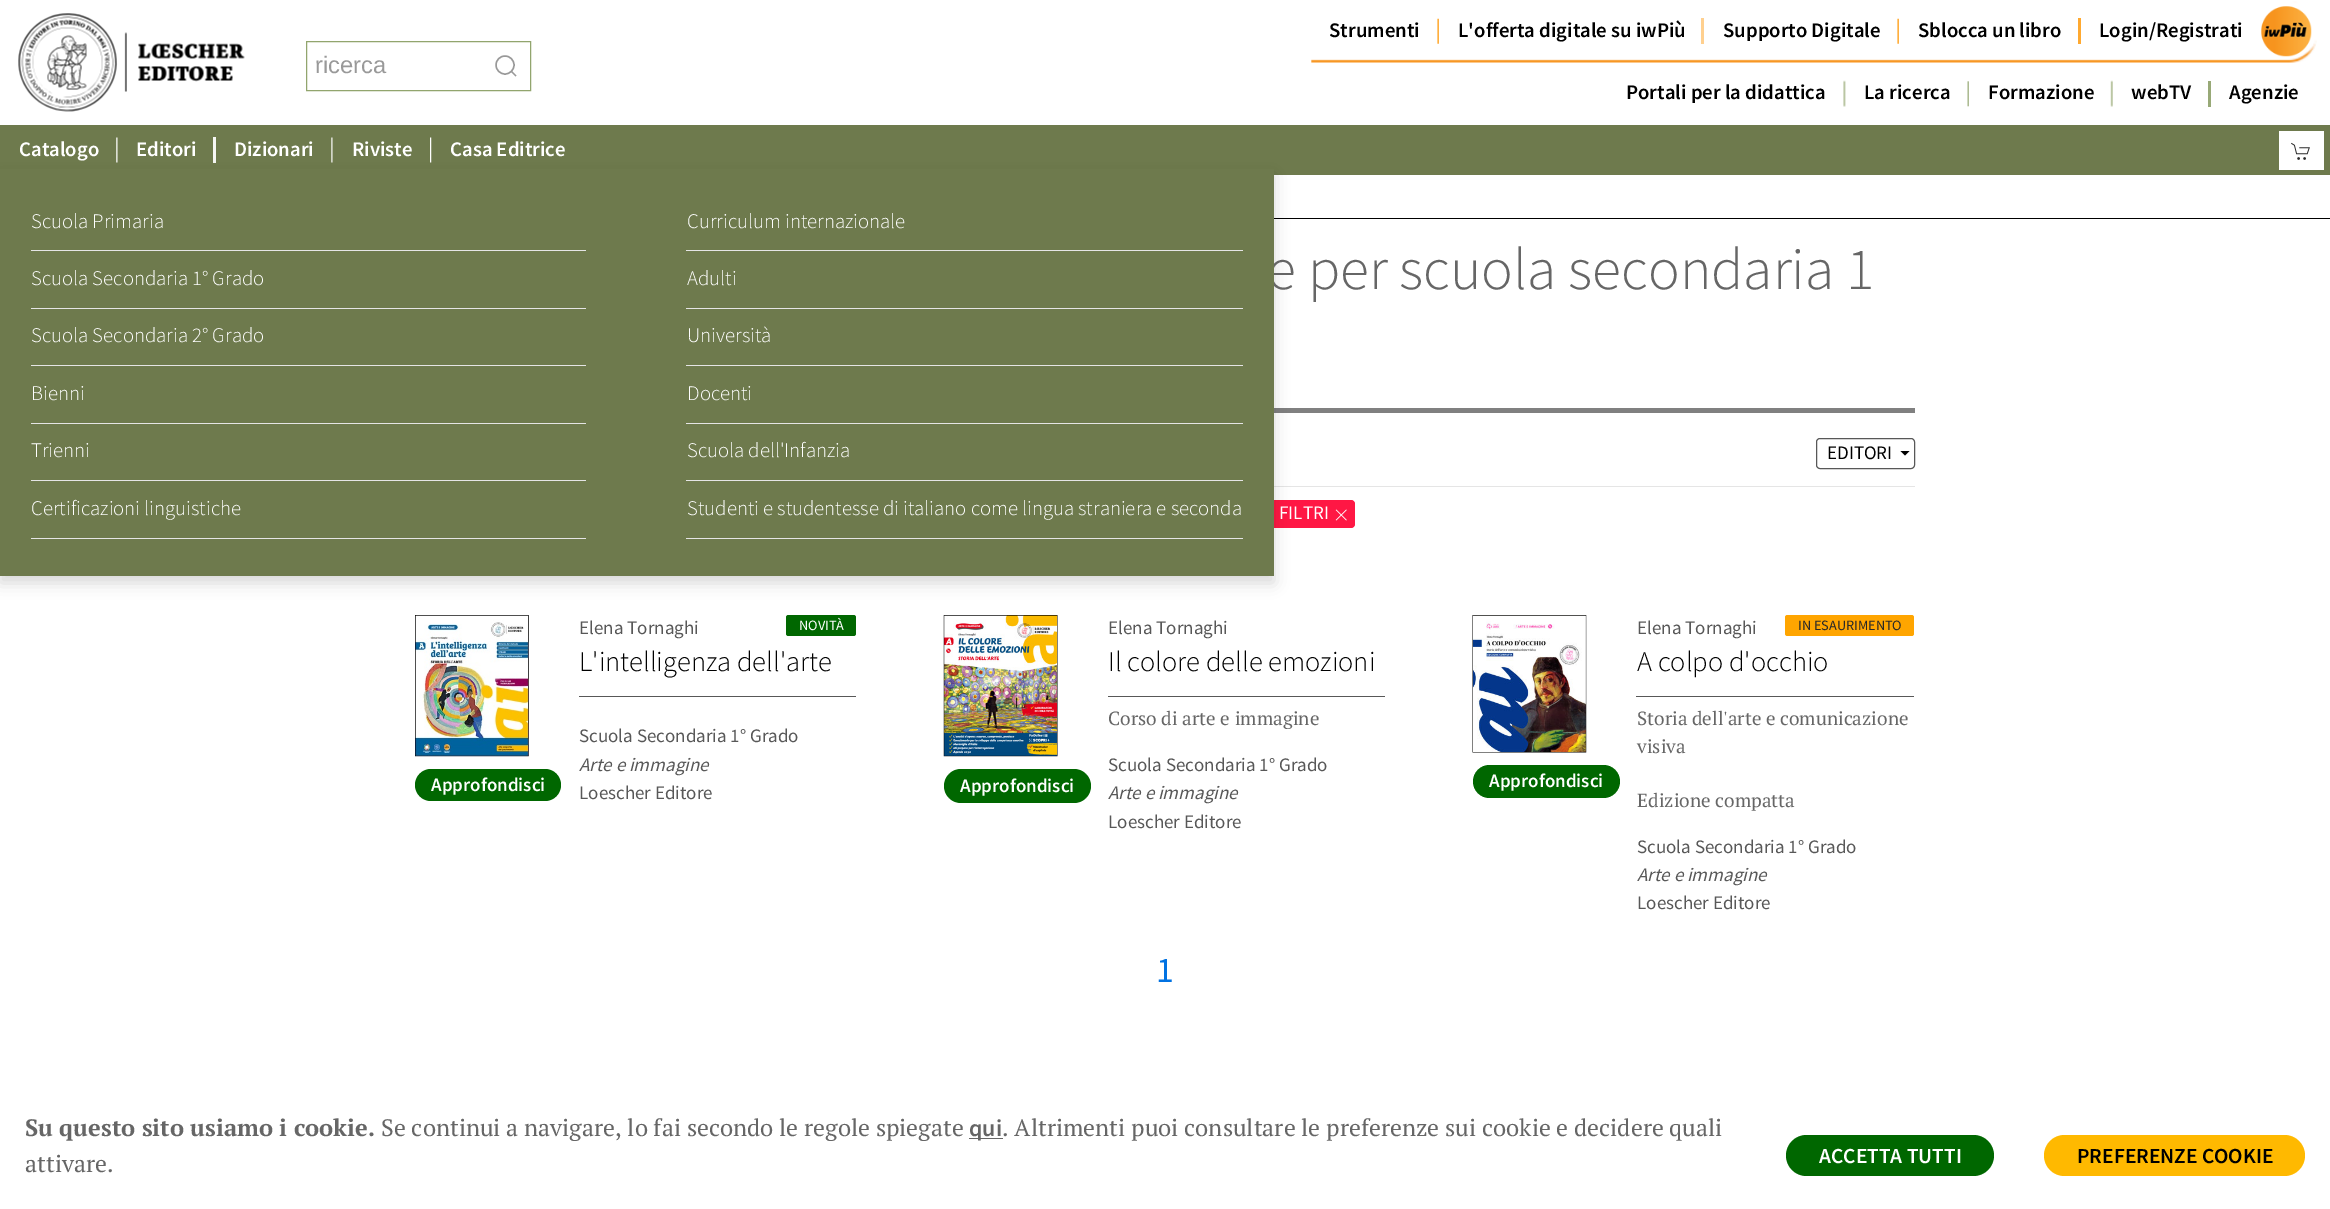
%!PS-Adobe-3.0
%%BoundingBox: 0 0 2330 1209
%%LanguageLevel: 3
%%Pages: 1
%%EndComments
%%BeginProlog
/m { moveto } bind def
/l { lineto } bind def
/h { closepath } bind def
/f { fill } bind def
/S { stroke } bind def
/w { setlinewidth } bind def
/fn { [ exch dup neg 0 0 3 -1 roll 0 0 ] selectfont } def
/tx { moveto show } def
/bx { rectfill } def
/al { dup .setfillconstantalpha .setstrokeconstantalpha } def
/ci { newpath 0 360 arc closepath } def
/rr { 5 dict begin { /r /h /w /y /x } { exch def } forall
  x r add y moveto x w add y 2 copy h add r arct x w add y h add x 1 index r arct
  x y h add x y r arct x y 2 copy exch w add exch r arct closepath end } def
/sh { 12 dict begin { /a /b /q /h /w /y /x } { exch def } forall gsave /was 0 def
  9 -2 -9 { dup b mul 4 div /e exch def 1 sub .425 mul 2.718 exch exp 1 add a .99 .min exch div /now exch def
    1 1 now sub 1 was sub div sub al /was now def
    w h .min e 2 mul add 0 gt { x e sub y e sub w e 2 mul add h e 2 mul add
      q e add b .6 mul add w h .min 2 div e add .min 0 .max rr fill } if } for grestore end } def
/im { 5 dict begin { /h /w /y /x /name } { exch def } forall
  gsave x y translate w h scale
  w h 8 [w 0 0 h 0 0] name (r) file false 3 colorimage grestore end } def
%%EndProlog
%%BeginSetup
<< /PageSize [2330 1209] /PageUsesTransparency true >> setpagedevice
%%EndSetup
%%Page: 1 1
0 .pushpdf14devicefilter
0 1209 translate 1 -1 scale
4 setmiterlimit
1 setgray
0 0 2330 1209 bx
(image0.raw) 18 13 227 99 im
0.573 0.647 0.431 setrgbcolor
306.5 41.5 224 49 rectstroke
/LiberationSans-Regular 23.75 fn
0.6 setgray
(ricerca) 315 73 tx
1.4 w
505 65 9 ci S
511 71 m 516 76 l h S
(image1.raw) 1311 1 1006 62 im
(image2.raw) 1437 18 2 26 im
/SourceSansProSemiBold-SemiBold 20.75 fn
0 setgray
(Strumenti) 1329 37 tx
1 0.816 0.561 setrgbcolor
1701 18 3 26 bx
0 setgray
(L'offerta digitale su iwPiù) 1458 37 tx
(image2.raw) 1897 18 2 26 im
(Supporto Digitale) 1723 37 tx
1 0.663 0.188 setrgbcolor
2078 18 3 26 bx
0 setgray
(Sblocca un libro) 1918 37 tx
(Login/Registrati) 2099 37 tx
(image3.raw) 2261 6 51 51 im
(image4.raw) 1843 80 3 27 im
(Portali per la didattica) 1626 99 tx
(image5.raw) 1967 81 2 26 im
(La ricerca) 1864 99 tx
(image6.raw) 2110 80 3 27 im
(Formazione) 1988 99 tx
0.596 0.663 0.467 setrgbcolor
2208 81 3 26 bx
0 setgray
(webTV) 2131 99 tx
(Agenzie) 2229 99 tx
0.431 0.478 0.302 setrgbcolor
0 125 2330 50 bx
(image7.raw) 116 137 2 26 im
1 setgray
(Catalogo) 19 156 tx
0.965 0.969 0.957 setrgbcolor
213 137 3 26 bx
(image8.raw) 331 137 2 26 im
(image9.raw) 430 137 2 26 im
0 setgray
1274 218 1056 1 bx
0.502 setgray
1274 408 641 5 bx
0.898 setgray
1274 486 641 1 bx
1 0.09 0.267 setrgbcolor
1193 500 162 28 4 rr f
0 setgray
0 175 1274 408 0 7.5 0.15 sh
/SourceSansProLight-Light 59.4 fn
0.4 setgray
(e per scuola secondaria 1) 1267 289 tx
0.431 0.478 0.302 setrgbcolor
0 169 1274 407 bx
/SourceSansProLight-Light 20.75 fn
1 setgray
(Scuola Primaria) 31 228 tx
(Curriculum internazionale) 687 228 tx
0.898 setgray
31 250 555 1 bx
686 250 557 1 bx
1 setgray
(Scuola Secondaria 1° Grado) 31 285 tx
(Adulti) 687 285 tx
0.898 setgray
31 308 555 1 bx
686 308 557 1 bx
1 setgray
(Scuola Secondaria 2° Grado) 31 342 tx
(Università) 687 342 tx
0.898 setgray
31 365 555 1 bx
686 365 557 1 bx
1 setgray
(Bienni) 31 400 tx
(Docenti) 687 400 tx
0.898 setgray
31 423 555 1 bx
686 423 557 1 bx
1 setgray
(Trienni) 31 457 tx
(Scuola dell'Infanzia) 687 457 tx
0.898 setgray
31 480 555 1 bx
686 480 557 1 bx
1 setgray
(Certificazioni linguistiche) 31 515 tx
(Studenti e studentesse di italiano come lingua straniera e seconda) 687 515 tx
0.898 setgray
31 538 555 1 bx
686 538 557 1 bx
/SourceSansProSemiBold-SemiBold 20.75 fn
1 setgray
(Editori) 136 156 tx
(Dizionari) 234 156 tx
(Riviste) 352 156 tx
(Casa Editrice) 450 156 tx
2279 131 45 39 bx
(image10.raw) 2291 142 19 18 im
0.345 setgray
1 w
1816.5 438.5 98 30 3.5 rr S
/SourceSansPro-Regular 19 fn
0 setgray
(EDITORI) 1827 459 tx
1900.5 451 m 1909.5 451 l 1905 455.5 l h f
1 setgray
(FILTRI) 1279 519 tx
(image11.raw) 1335 509 12 12 im
(image12.raw) 415 615 114 142 im
0 0.404 0 setrgbcolor
415 769 146 32 16 rr f
/SourceSansProSemiBold-SemiBold 19 fn
1 setgray
(Approfondisci) 431 791 tx
/SourceSansPro-Regular 19 fn
0.345 setgray
(Elena Tornaghi) 579 634 tx
0 0.404 0 setrgbcolor
786 615 70 21 2.5 rr f
/SourceSansPro-Regular 14.25 fn
1 setgray
(NOVITÀ) 799 630 tx
/SourceSansProLight-Light 28.5 fn
0 setgray
(L'intelligenza dell'arte) 579 671 tx
0.345 setgray
579 696 277 1 bx
/SourceSansPro-Regular 19 fn
(Scuola Secondaria 1° Grado) 579 742 tx
/SourceSansPro-Italic 19 fn
(Arte e immagine) 579 771 tx
/SourceSansPro-Regular 19 fn
(Loescher Editore) 579 799 tx
(image13.raw) 943 615 115 142 im
0 0.404 0 setrgbcolor
944 769 147 34 17 rr f
/SourceSansProSemiBold-SemiBold 19 fn
1 setgray
(Approfondisci) 960 792 tx
/SourceSansPro-Regular 19 fn
0.345 setgray
(Elena Tornaghi) 1108 634 tx
/SourceSansProLight-Light 28.5 fn
0 setgray
(Il colore delle emozioni) 1108 671 tx
0.345 setgray
1108 696 277 1 bx
/PTSerif-Regular 19 fn
0.4 setgray
(Corso di arte e immagine) 1108 725 tx
/SourceSansPro-Regular 19 fn
0.345 setgray
(Scuola Secondaria 1° Grado) 1108 771 tx
/SourceSansPro-Italic 19 fn
(Arte e immagine) 1108 799 tx
/SourceSansPro-Regular 19 fn
(Loescher Editore) 1108 828 tx
(image14.raw) 1472 615 115 138 im
0 0.404 0 setrgbcolor
1473 765 147 33 16.5 rr f
/SourceSansProSemiBold-SemiBold 19 fn
1 setgray
(Approfondisci) 1489 787 tx
/SourceSansPro-Regular 19 fn
0.345 setgray
(Elena Tornaghi) 1637 634 tx
1 0.647 0 setrgbcolor
1785 615 129 21 2.5 rr f
/SourceSansPro-Regular 14.25 fn
0.157 setgray
(IN ESAURIMENTO) 1798 630 tx
/SourceSansProLight-Light 28.5 fn
0 setgray
(A colpo d'occhio) 1637 671 tx
0.345 setgray
1636 696 278 1 bx
/PTSerif-Regular 19 fn
0.4 setgray
(Storia dell'arte e comunicazione) 1637 725 tx
(visiva) 1637 753 tx
(Edizione compatta) 1637 807 tx
/SourceSansPro-Regular 19 fn
0.345 setgray
(Scuola Secondaria 1° Grado) 1637 853 tx
/SourceSansPro-Italic 19 fn
(Arte e immagine) 1637 881 tx
/SourceSansPro-Regular 19 fn
(Loescher Editore) 1637 909 tx
/SourceSansPro-Regular 36 fn
0.004 0.447 0.886 setrgbcolor
(1) 1156 982 tx
/PTSerif-Bold 23.75 fn
0.4 setgray
(Su questo sito usiamo i cookie.) 25 1136 tx
/PTSerif-Regular 23.75 fn
(Se continui a navigare, lo fai secondo le regole spiegate) 381 1136 tx
969 1138 34 1 bx
/SourceSansProSemiBold-SemiBold 23.75 fn
(qui) 969 1136 tx
/PTSerif-Regular 23.75 fn
(. Altrimenti puoi consultare le preferenze sui cookie e decidere quali) 1002 1136 tx
(attivare.) 25 1172 tx
0 0.404 0 setrgbcolor
1786 1135 208 41 20.5 rr f
/SourceSansProSemiBold-SemiBold 21.4 fn
1 setgray
(ACCETTA TUTTI) 1819 1163 tx
1 0.725 0 setrgbcolor
2044 1135 261 41 20.5 rr f
0 setgray
(PREFERENZE COOKIE) 2077 1163 tx
.poppdf14devicefilter showpage
%%EOF
